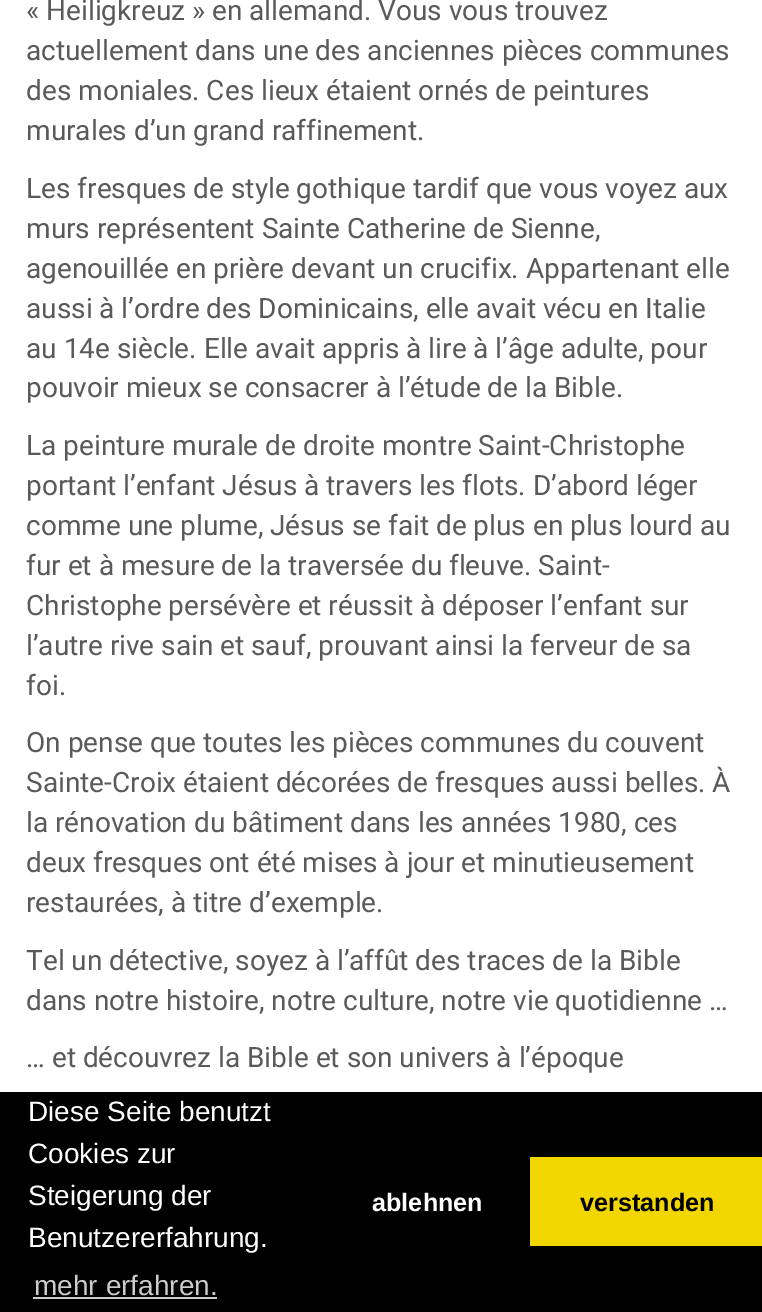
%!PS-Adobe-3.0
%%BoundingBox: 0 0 762 1312
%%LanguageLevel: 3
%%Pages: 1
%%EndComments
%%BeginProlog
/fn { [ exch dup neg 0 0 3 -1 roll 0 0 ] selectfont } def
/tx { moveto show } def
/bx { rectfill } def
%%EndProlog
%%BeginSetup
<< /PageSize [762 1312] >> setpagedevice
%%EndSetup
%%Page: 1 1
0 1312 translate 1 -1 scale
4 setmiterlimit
1 setgray
0 0 762 1312 bx
/Roboto-Regular 28 fn
0.353 setgray
(« Heiligkreuz » en allemand. Vous vous trouvez) 26 20 tx
(actuellement dans une des anciennes pièces communes) 26 60 tx
(des moniales. Ces lieux étaient ornés de peintures) 26 100 tx
(murales d’un grand raffinement.) 26 140 tx
(Les fresques de style gothique tardif que vous voyez aux) 26 198 tx
(murs représentent Sainte Catherine de Sienne,) 26 238 tx
(agenouillée en prière devant un crucifix. Appartenant elle) 26 278 tx
(aussi à l’ordre des Dominicains, elle avait vécu en Italie) 26 318 tx
(au 14e siècle. Elle avait appris à lire à l’âge adulte, pour) 26 358 tx
(pouvoir mieux se consacrer à l’étude de la Bible.) 26 397 tx
(La peinture murale de droite montre Saint-Christophe) 26 455 tx
(portant l’enfant Jésus à travers les flots. D’abord léger) 26 495 tx
(comme une plume, Jésus se fait de plus en plus lourd au) 26 535 tx
(fur et à mesure de la traversée du fleuve. Saint-) 26 575 tx
(Christophe persévère et réussit à déposer l’enfant sur) 26 615 tx
(l’autre rive sain et sauf, prouvant ainsi la ferveur de sa) 26 655 tx
(foi.) 26 695 tx
(On pense que toutes les pièces communes du couvent) 26 752 tx
(Sainte-Croix étaient décorées de fresques aussi belles. À) 26 792 tx
(la rénovation du bâtiment dans les années 1980, ces) 26 832 tx
(deux fresques ont été mises à jour et minutieusement) 26 872 tx
(restaurées, à titre d’exemple.) 26 912 tx
(Tel un détective, soyez à l’affût des traces de la Bible) 26 970 tx
(dans notre histoire, notre culture, notre vie quotidienne …) 26 1010 tx
(… et découvrez la Bible et son univers à l’époque) 26 1067 tx
0 setgray
0 1092 762 220 bx
/LiberationSans-Regular 28 fn
1 setgray
(Diese Seite benutzt) 28 1121 tx
(Cookies zur) 28 1163 tx
(Steigerung der) 28 1205 tx
(Benutzererfahrung.) 28 1247 tx
0.8 setgray
(mehr erfahren.) 34 1295 tx
33 1297 184 2 bx
/LiberationSans-Bold 25.25 fn
1 setgray
(ablehnen) 372 1211 tx
0.945 0.839 0 setrgbcolor
530 1157 232 89 bx
0 setgray
(verstanden) 580 1211 tx
showpage
%%EOF
